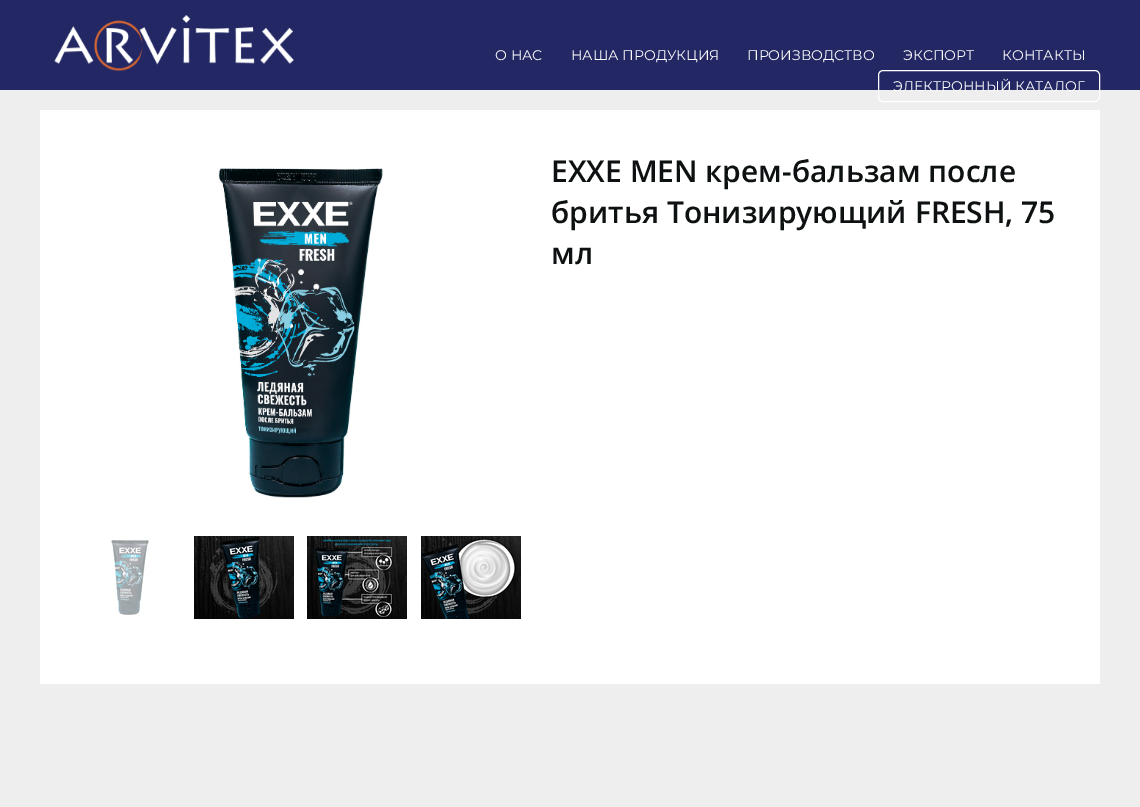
%!PS-Adobe-3.0
%%BoundingBox: 0 0 1140 807
%%LanguageLevel: 3
%%Pages: 1
%%EndComments
%%BeginProlog
/S { stroke } bind def
/fn { [ exch dup neg 0 0 3 -1 roll 0 0 ] selectfont } def
/tx { moveto show } def
/bx { rectfill } def
/rr { 5 dict begin { /r /h /w /y /x } { exch def } forall
  x r add y moveto x w add y 2 copy h add r arct x w add y h add x 1 index r arct
  x y h add x y r arct x y 2 copy exch w add exch r arct closepath end } def
/im { 5 dict begin { /h /w /y /x /name } { exch def } forall
  gsave x y translate w h scale
  w h 8 [w 0 0 h 0 0] name (r) file false 3 colorimage grestore end } def
%%EndProlog
%%BeginSetup
<< /PageSize [1140 807] >> setpagedevice
%%EndSetup
%%Page: 1 1
0 807 translate 1 -1 scale
4 setmiterlimit
0.933 setgray
0 0 1140 807 bx
0.137 0.153 0.392 setrgbcolor
0 0 1140 90 bx
(image0.raw) 54 15 240 56 im
/Montserrat-Regular 14 fn
1 setgray
(О НАС) 495 60 tx
(НАША ПРОДУКЦИЯ) 571 60 tx
(ПРОИЗВОДСТВО) 747 60 tx
(ЭКСПОРТ) 903 60 tx
(КОНТАКТЫ) 1002 60 tx
878.5 70.5 221 31 4.5 rr S
(ЭЛЕКТРОННЫЙ КАТАЛОГ) 893 91 tx
40 110 1060 574 bx
(image1.raw) 218 168 165 330 im
(image2.raw) 111 540 38 75 im
(image3.raw) 194 536 100 83 im
(image4.raw) 307 536 100 83 im
(image5.raw) 421 536 100 83 im
/OpenSans-SemiBold 30 fn
0.055 0.067 0.071 setrgbcolor
(EXXE MEN крем-бальзам после) 551 182 tx
(бритья Тонизирующий FRESH, 75) 551 223 tx
(мл) 551 264 tx
showpage
%%EOF
